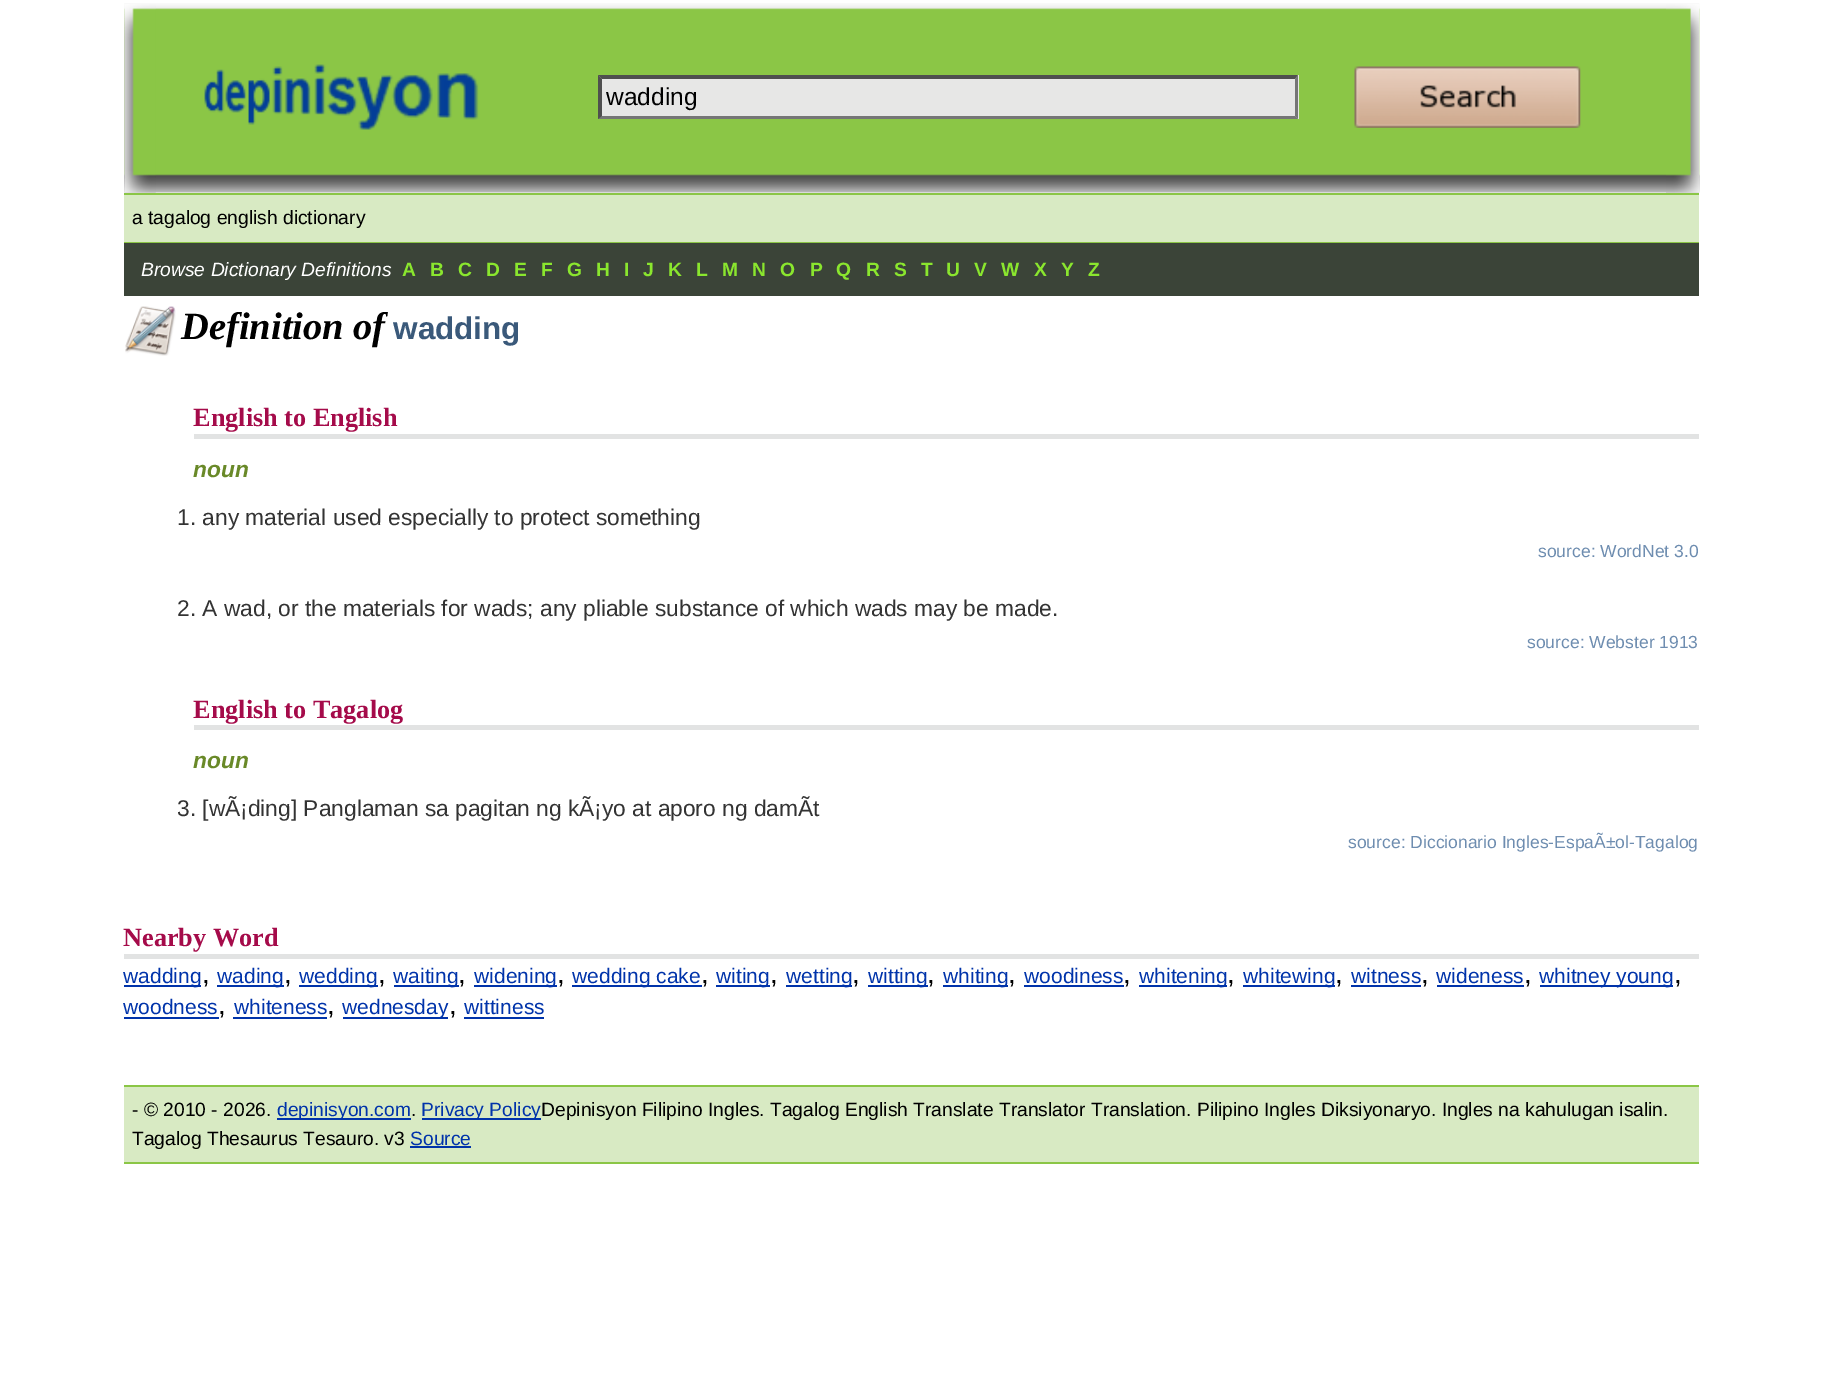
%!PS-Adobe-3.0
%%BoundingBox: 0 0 1821 1373
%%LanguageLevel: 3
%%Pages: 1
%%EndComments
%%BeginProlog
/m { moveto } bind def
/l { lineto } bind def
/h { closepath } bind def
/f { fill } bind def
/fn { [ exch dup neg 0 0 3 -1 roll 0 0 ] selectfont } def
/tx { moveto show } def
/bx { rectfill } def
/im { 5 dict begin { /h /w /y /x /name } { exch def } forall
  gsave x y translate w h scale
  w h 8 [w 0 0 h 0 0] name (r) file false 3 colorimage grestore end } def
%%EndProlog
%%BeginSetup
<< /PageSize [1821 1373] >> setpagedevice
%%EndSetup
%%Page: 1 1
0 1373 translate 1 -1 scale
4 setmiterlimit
1 setgray
0 0 1821 1373 bx
(image0.raw) 124 3 1576 190 im
(image1.raw) 124 4 32 189 im
(image2.raw) 204 64 275 66 im
0.906 0.906 0.902 setrgbcolor
599 75 700 44 bx
0.31 setgray
598 75 m 1298 75 l 1295 79 l 602 79 l h f
0.463 setgray
1298 75 m 1298 119 l 1295 116 l 1295 79 l h f
1298 119 m 598 119 l 602 116 l 1295 116 l h f
0.31 setgray
598 119 m 598 75 l 602 79 l 602 116 l h f
/LiberationSans-Regular 24.5 fn
0 setgray
(wadding) 606 105 tx
(image3.raw) 1354 66 227 62 im
(image4.raw) 1666 4 34 189 im
0.847 0.918 0.765 setrgbcolor
124 195 1575 47 bx
0.545 0.776 0.275 setrgbcolor
124 193 1575 2 bx
124 242 1575 1 bx
/LiberationSans-Regular 19.25 fn
0 setgray
(a tagalog english dictionary) 132 224 tx
0.231 0.267 0.22 setrgbcolor
124 243 1575 53 bx
/LiberationSans-Italic 19.25 fn
1 setgray
(Browse Dictionary Definitions) 141 276 tx
/LiberationSans-Bold 19.25 fn
0.541 0.902 0.18 setrgbcolor
(A) 402 276 tx
(B) 430 276 tx
(C) 458 276 tx
(D) 486 276 tx
(E) 514 276 tx
(F) 541 276 tx
(G) 567 276 tx
(H) 596 276 tx
(I) 624 276 tx
(J) 643 276 tx
(K) 668 276 tx
(L) 696 276 tx
(M) 722 276 tx
(N) 752 276 tx
(O) 780 276 tx
(P) 810 276 tx
(Q) 836 276 tx
(R) 866 276 tx
(S) 894 276 tx
(T) 921 276 tx
(U) 946 276 tx
(V) 974 276 tx
(W) 1001 276 tx
(X) 1034 276 tx
(Y) 1061 276 tx
(Z) 1088 276 tx
(image5.raw) 125 306 51 50 im
/LiberationSerif-BoldItalic 38.5 fn
0 setgray
(Definition of) 181 339 tx
/LiberationSans-Bold 31.5 fn
0.227 0.349 0.478 setrgbcolor
(wadding) 393 339 tx
0.886 0.89 0.89 setrgbcolor
194 434 1505 5 bx
/LiberationSerif-Bold 26.25 fn
0.647 0.043 0.29 setrgbcolor
(English to English) 193 426 tx
/LiberationSans-BoldItalic 22.75 fn
0.412 0.537 0.157 setrgbcolor
(noun) 193 477 tx
/LiberationSans-Regular 22.75 fn
0.2 setgray
(1. any material used especially to protect something) 177 525 tx
/LiberationSans-Regular 17.5 fn
0.431 0.553 0.69 setrgbcolor
(source: WordNet 3.0) 1538 557 tx
/LiberationSans-Regular 22.75 fn
0.2 setgray
(2. A wad, or the materials for wads; any pliable substance of which wads may be made.) 177 616 tx
/LiberationSans-Regular 17.5 fn
0.431 0.553 0.69 setrgbcolor
(source: Webster 1913) 1527 648 tx
0.886 0.89 0.89 setrgbcolor
194 725 1505 5 bx
/LiberationSerif-Bold 26.25 fn
0.647 0.043 0.29 setrgbcolor
(English to Tagalog) 193 718 tx
/LiberationSans-BoldItalic 22.75 fn
0.412 0.537 0.157 setrgbcolor
(noun) 193 768 tx
/LiberationSans-Regular 22.75 fn
0.2 setgray
(3. [wÃ¡ding] Panglaman sa pagitan ng kÃ¡yo at aporo ng damÃt) 177 816 tx
/LiberationSans-Regular 17.5 fn
0.431 0.553 0.69 setrgbcolor
(source: Diccionario Ingles-EspaÃ±ol-Tagalog) 1348 848 tx
0.886 0.89 0.89 setrgbcolor
124 954 1575 5 bx
/LiberationSerif-Bold 26.25 fn
0.647 0.043 0.29 setrgbcolor
(Nearby Word) 123 946 tx
0 0.2 0.667 setrgbcolor
124 985 77 2 bx
/LiberationSans-Regular 21 fn
(wadding) 123 983 tx
/LiberationSans-Regular 28 fn
0 setgray
(,) 202 983 tx
0 0.2 0.667 setrgbcolor
217 985 67 2 bx
/LiberationSans-Regular 21 fn
(wading) 217 983 tx
/LiberationSans-Regular 28 fn
0 setgray
(,) 284 983 tx
0 0.2 0.667 setrgbcolor
299 985 79 2 bx
/LiberationSans-Regular 21 fn
(wedding) 299 983 tx
/LiberationSans-Regular 28 fn
0 setgray
(,) 378 983 tx
0 0.2 0.667 setrgbcolor
394 985 65 2 bx
/LiberationSans-Regular 21 fn
(waiting) 393 983 tx
/LiberationSans-Regular 28 fn
0 setgray
(,) 458 983 tx
0 0.2 0.667 setrgbcolor
474 985 83 2 bx
/LiberationSans-Regular 21 fn
(widening) 474 983 tx
/LiberationSans-Regular 28 fn
0 setgray
(,) 557 983 tx
0 0.2 0.667 setrgbcolor
572 985 130 2 bx
/LiberationSans-Regular 21 fn
(wedding cake) 572 983 tx
/LiberationSans-Regular 28 fn
0 setgray
(,) 701 983 tx
0 0.2 0.667 setrgbcolor
716 985 54 2 bx
/LiberationSans-Regular 21 fn
(witing) 716 983 tx
/LiberationSans-Regular 28 fn
0 setgray
(,) 770 983 tx
0 0.2 0.667 setrgbcolor
786 985 66 2 bx
/LiberationSans-Regular 21 fn
(wetting) 786 983 tx
/LiberationSans-Regular 28 fn
0 setgray
(,) 852 983 tx
0 0.2 0.667 setrgbcolor
868 985 60 2 bx
/LiberationSans-Regular 21 fn
(witting) 868 983 tx
/LiberationSans-Regular 28 fn
0 setgray
(,) 927 983 tx
0 0.2 0.667 setrgbcolor
943 985 65 2 bx
/LiberationSans-Regular 21 fn
(whiting) 943 983 tx
/LiberationSans-Regular 28 fn
0 setgray
(,) 1008 983 tx
/LiberationSans-Regular 21 fn
0 0.2 0.667 setrgbcolor
(woodiness) 1024 983 tx
/LiberationSans-Regular 28 fn
0 setgray
(,) 1123 983 tx
0 0.2 0.667 setrgbcolor
1024 985 100 2 bx
1139 985 88 2 bx
/LiberationSans-Regular 21 fn
(whitening) 1139 983 tx
/LiberationSans-Regular 28 fn
0 setgray
(,) 1227 983 tx
0 0.2 0.667 setrgbcolor
1243 985 92 2 bx
/LiberationSans-Regular 21 fn
(whitewing) 1243 983 tx
/LiberationSans-Regular 28 fn
0 setgray
(,) 1335 983 tx
/LiberationSans-Regular 21 fn
0 0.2 0.667 setrgbcolor
(witness) 1351 983 tx
/LiberationSans-Regular 28 fn
0 setgray
(,) 1421 983 tx
0 0.2 0.667 setrgbcolor
1351 985 70 2 bx
/LiberationSans-Regular 21 fn
(wideness) 1436 983 tx
/LiberationSans-Regular 28 fn
0 setgray
(,) 1524 983 tx
0 0.2 0.667 setrgbcolor
1437 985 87 2 bx
1540 985 133 2 bx
/LiberationSans-Regular 21 fn
(whitney young) 1539 983 tx
/LiberationSans-Regular 28 fn
0 setgray
(,) 1674 983 tx
/LiberationSans-Regular 21 fn
0 0.2 0.667 setrgbcolor
(woodness) 123 1014 tx
/LiberationSans-Regular 28 fn
0 setgray
(,) 218 1014 tx
0 0.2 0.667 setrgbcolor
124 1017 95 2 bx
/LiberationSans-Regular 21 fn
(whiteness) 234 1014 tx
/LiberationSans-Regular 28 fn
0 setgray
(,) 327 1014 tx
0 0.2 0.667 setrgbcolor
233 1017 94 2 bx
343 1017 105 2 bx
/LiberationSans-Regular 21 fn
(wednesday) 342 1014 tx
/LiberationSans-Regular 28 fn
0 setgray
(,) 449 1014 tx
/LiberationSans-Regular 21 fn
0 0.2 0.667 setrgbcolor
(wittiness) 464 1014 tx
464 1017 80 2 bx
0.847 0.918 0.765 setrgbcolor
124 1087 1575 75 bx
0.545 0.776 0.275 setrgbcolor
124 1085 1575 2 bx
124 1162 1575 2 bx
/LiberationSans-Regular 19.25 fn
0 setgray
(- © 2010 - 2026.) 132 1116 tx
0 0.2 0.667 setrgbcolor
277 1118 134 2 bx
(depinisyon.com) 277 1116 tx
0 setgray
(.) 411 1116 tx
0 0.2 0.667 setrgbcolor
422 1118 119 2 bx
(Privacy Policy) 421 1116 tx
0 setgray
(Depinisyon Filipino Ingles. Tagalog English Translate Translator Translation. Pilipino Ingles Diksiyonaryo. Ingles na kahulugan isalin.) 541 1116 tx
(Tagalog Thesaurus Tesauro. v3) 132 1145 tx
0 0.2 0.667 setrgbcolor
(Source) 410 1145 tx
410 1146 61 2 bx
showpage
%%EOF
